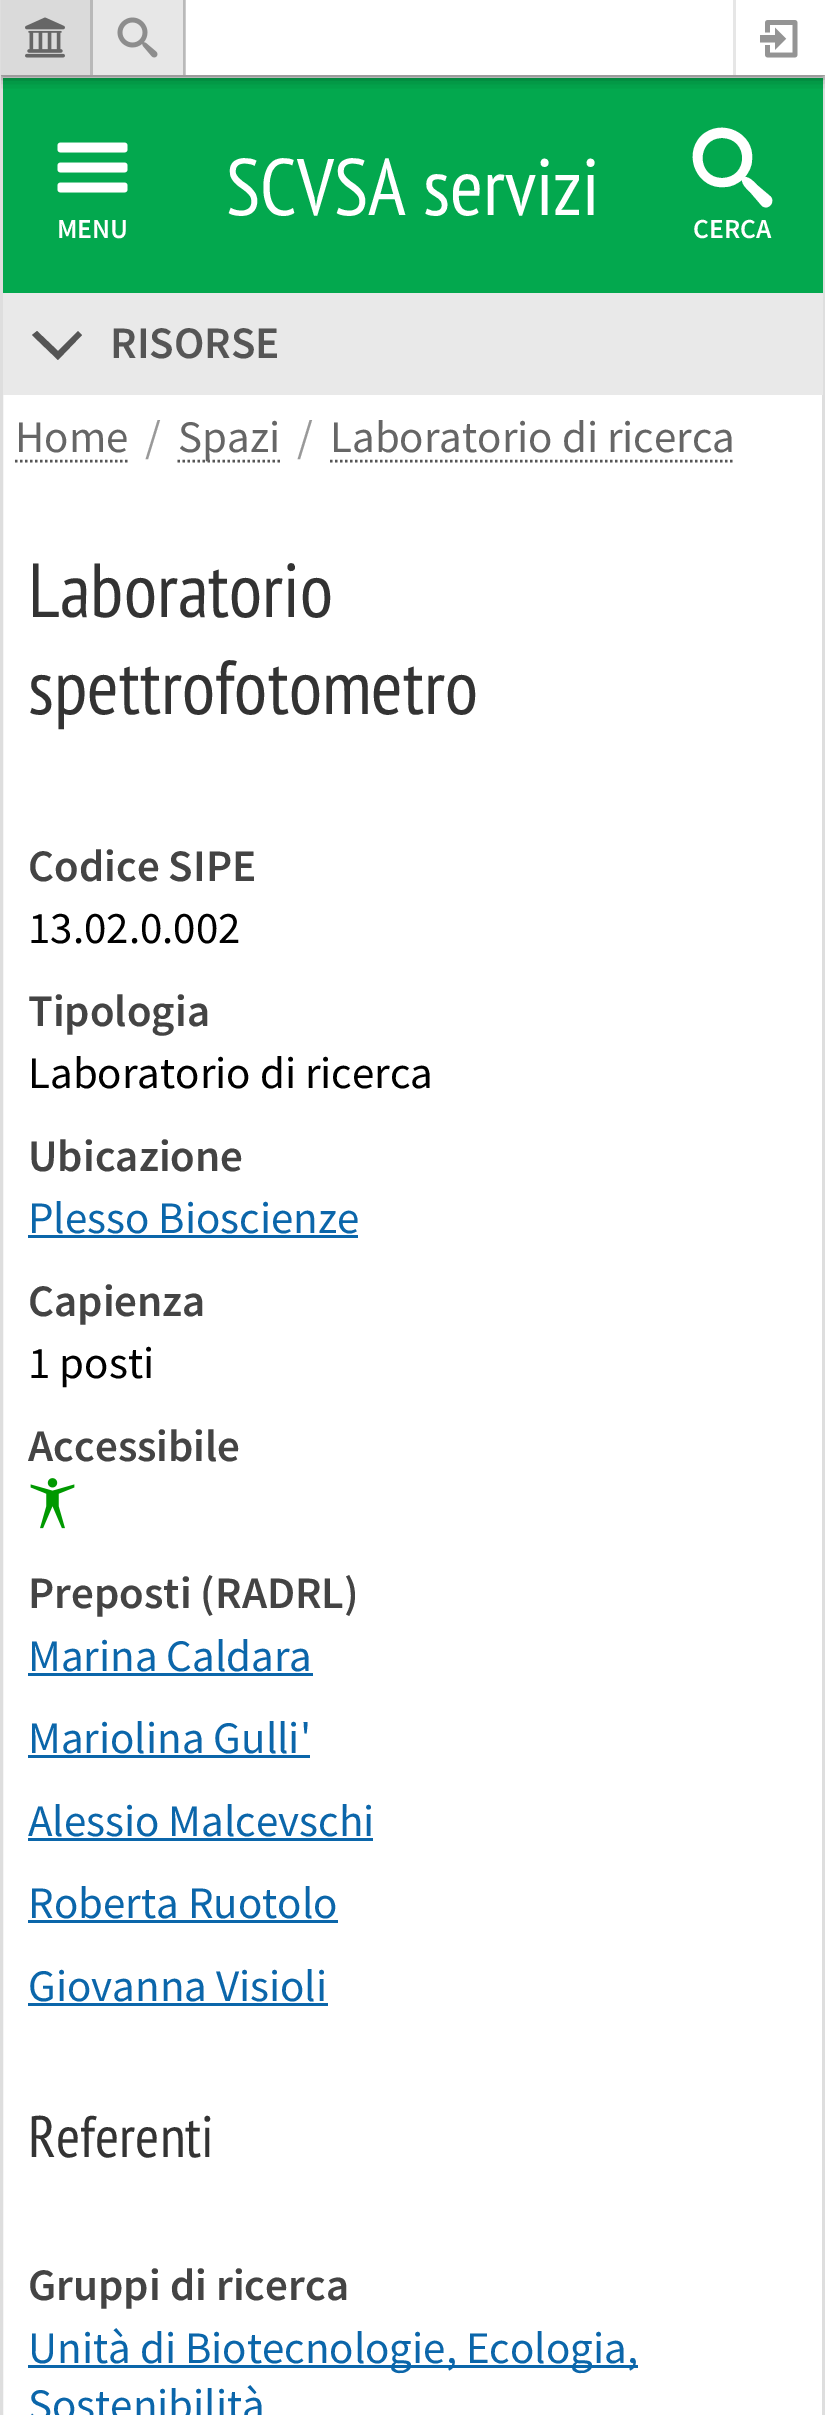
%!PS-Adobe-3.0
%%BoundingBox: 0 0 825 2415
%%LanguageLevel: 3
%%Pages: 1
%%EndComments
%%BeginProlog
/m { moveto } bind def
/l { lineto } bind def
/c { curveto } bind def
/h { closepath } bind def
/f { fill } bind def
/S { stroke } bind def
/q { gsave } bind def
/Q { grestore } bind def
/w { setlinewidth } bind def
/fn { [ exch dup neg 0 0 3 -1 roll 0 0 ] selectfont } def
/tx { moveto show } def
/bx { rectfill } def
/al { dup .setfillconstantalpha .setstrokeconstantalpha } def
/rr { 5 dict begin { /r /h /w /y /x } { exch def } forall
  x r add y moveto x w add y 2 copy h add r arct x w add y h add x 1 index r arct
  x y h add x y r arct x y 2 copy exch w add exch r arct closepath end } def
/sh { 12 dict begin { /a /b /q /h /w /y /x } { exch def } forall gsave /was 0 def
  9 -2 -9 { dup b mul 4 div /e exch def 1 sub .425 mul 2.718 exch exp 1 add a .99 .min exch div /now exch def
    1 1 now sub 1 was sub div sub al /was now def
    w h .min e 2 mul add 0 gt { x e sub y e sub w e 2 mul add h e 2 mul add
      q e add b .6 mul add w h .min 2 div e add .min 0 .max rr fill } if } for grestore end } def
/im { 5 dict begin { /h /w /y /x /name } { exch def } forall
  gsave x y translate w h scale
  w h 8 [w 0 0 h 0 0] name (r) file false 3 colorimage grestore end } def
%%EndProlog
%%BeginSetup
<< /PageSize [825 2415] /PageUsesTransparency true >> setpagedevice
%%EndSetup
%%Page: 1 1
0 .pushpdf14devicefilter
0 2415 translate 1 -1 scale
4 setmiterlimit
1 setgray
0 0 825 2415 bx
0.8 setgray
185 0 1 75 bx
0.871 setgray
3 w
1.5 76.5 822 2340 rectstroke
0.012 0.659 0.306 setrgbcolor
3 78 820 215 bx
q
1 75 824 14 rectclip
0 setgray
0 0 825 75 0 7.5 0.6 sh
Q
0.725 setgray
90 0 3 75 bx
0.855 setgray
1 0 89 75 bx
(image0.raw) 25 17 40 41 im
0.906 setgray
93 0 90 75 bx
0.725 setgray
183 0 2 75 bx
(image1.raw) 117 17 41 41 im
0.902 setgray
733 0 3 75 bx
(image2.raw) 760 20 38 38 im
/PTSansNarrow-Regular 80 fn
1 setgray
(SCVSA servizi) 226 215 tx
(image3.raw) 57 142 71 51 im
/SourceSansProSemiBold-SemiBold 27.5 fn
(MENU) 57 238 tx
770 196 m 757 185 l 755 183 750 177 745 177 c 749 172 752 166 752 160 c 755 133 721 117 701 136 c 682 156 698 190 725 187 c 731 187 737 184 742 180 c 742 185 748 190 750 192 c 762 206 l 769 211 776 201 770 196 c h 722 178 m 696 178 696 138 722 138 c 749 138 749 178 722 178 c h f
(CERCA) 693 238 tx
0.914 setgray
3 293 820 102 bx
0.333 setgray
82 335 m 78 331 l 58 351 l 37 331 l 32 335 l 58 360 l h f
/SourceSansProSemiBold-SemiBold 45 fn
(RISORSE) 110 358 tx
0.871 setgray
0 0 1 88 bx
0.333 setgray
2.5 w
[2.5 2.5] 0 setdash
15 461 m 127.5 461 l S
/SourceSansPro-Regular 45 fn
0.4 setgray
(Home) 15 452 tx
0.6 setgray
(/) 145 452 tx
0.333 setgray
177.5 461 m 280 461 l S
0.4 setgray
(Spazi) 178 452 tx
0.6 setgray
(/) 297 452 tx
0.333 setgray
330 461 m 735 461 l S
0.4 setgray
(Laboratorio di ricerca) 330 452 tx
/PTSansNarrow-Regular 76.5 fn
0.2 setgray
(Laboratorio) 28 617 tx
(spettrofotometro) 28 714 tx
/SourceSansProSemiBold-SemiBold 45 fn
0.267 setgray
(Codice SIPE) 28 881 tx
/SourceSansPro-Regular 45 fn
0 setgray
(13.02.0.002) 28 943 tx
/SourceSansProSemiBold-SemiBold 45 fn
0.267 setgray
(Tipologia) 28 1026 tx
/SourceSansPro-Regular 45 fn
0 setgray
(Laboratorio di ricerca) 28 1088 tx
/SourceSansProSemiBold-SemiBold 45 fn
0.267 setgray
(Ubicazione) 28 1171 tx
/SourceSansPro-Regular 45 fn
0.043 0.4 0.667 setrgbcolor
(Plesso Bioscienze) 28 1233 tx
28 1235 330 3 bx
/SourceSansProSemiBold-SemiBold 45 fn
0.267 setgray
(Capienza) 28 1316 tx
/SourceSansPro-Regular 45 fn
0 setgray
(1 posti) 28 1378 tx
/SourceSansProSemiBold-SemiBold 45 fn
0.267 setgray
(Accessibile) 28 1461 tx
(image4.raw) 30 1478 45 51 im
(Preposti \(RADRL\)) 28 1608 tx
/SourceSansPro-Regular 45 fn
0.043 0.4 0.667 setrgbcolor
(Marina Caldara) 28 1671 tx
28 1673 285 3 bx
(Mariolina Gulli') 28 1753 tx
28 1755 282 3 bx
(Alessio Malcevschi) 28 1836 tx
28 1838 345 3 bx
(Roberta Ruotolo) 28 1918 tx
28 1920 310 3 bx
(Giovanna Visioli) 28 2001 tx
28 2003 300 3 bx
/PTSansNarrow-Regular 58.5 fn
0.2 setgray
(Referenti) 28 2157 tx
/SourceSansProSemiBold-SemiBold 45 fn
0.267 setgray
(Gruppi di ricerca) 28 2300 tx
0.043 0.4 0.667 setrgbcolor
28 2365 610 3 bx
/SourceSansPro-Regular 45 fn
(Unità di Biotecnologie, Ecologia,) 28 2363 tx
(Sostenibilità) 28 2420 tx
.poppdf14devicefilter showpage
%%EOF
